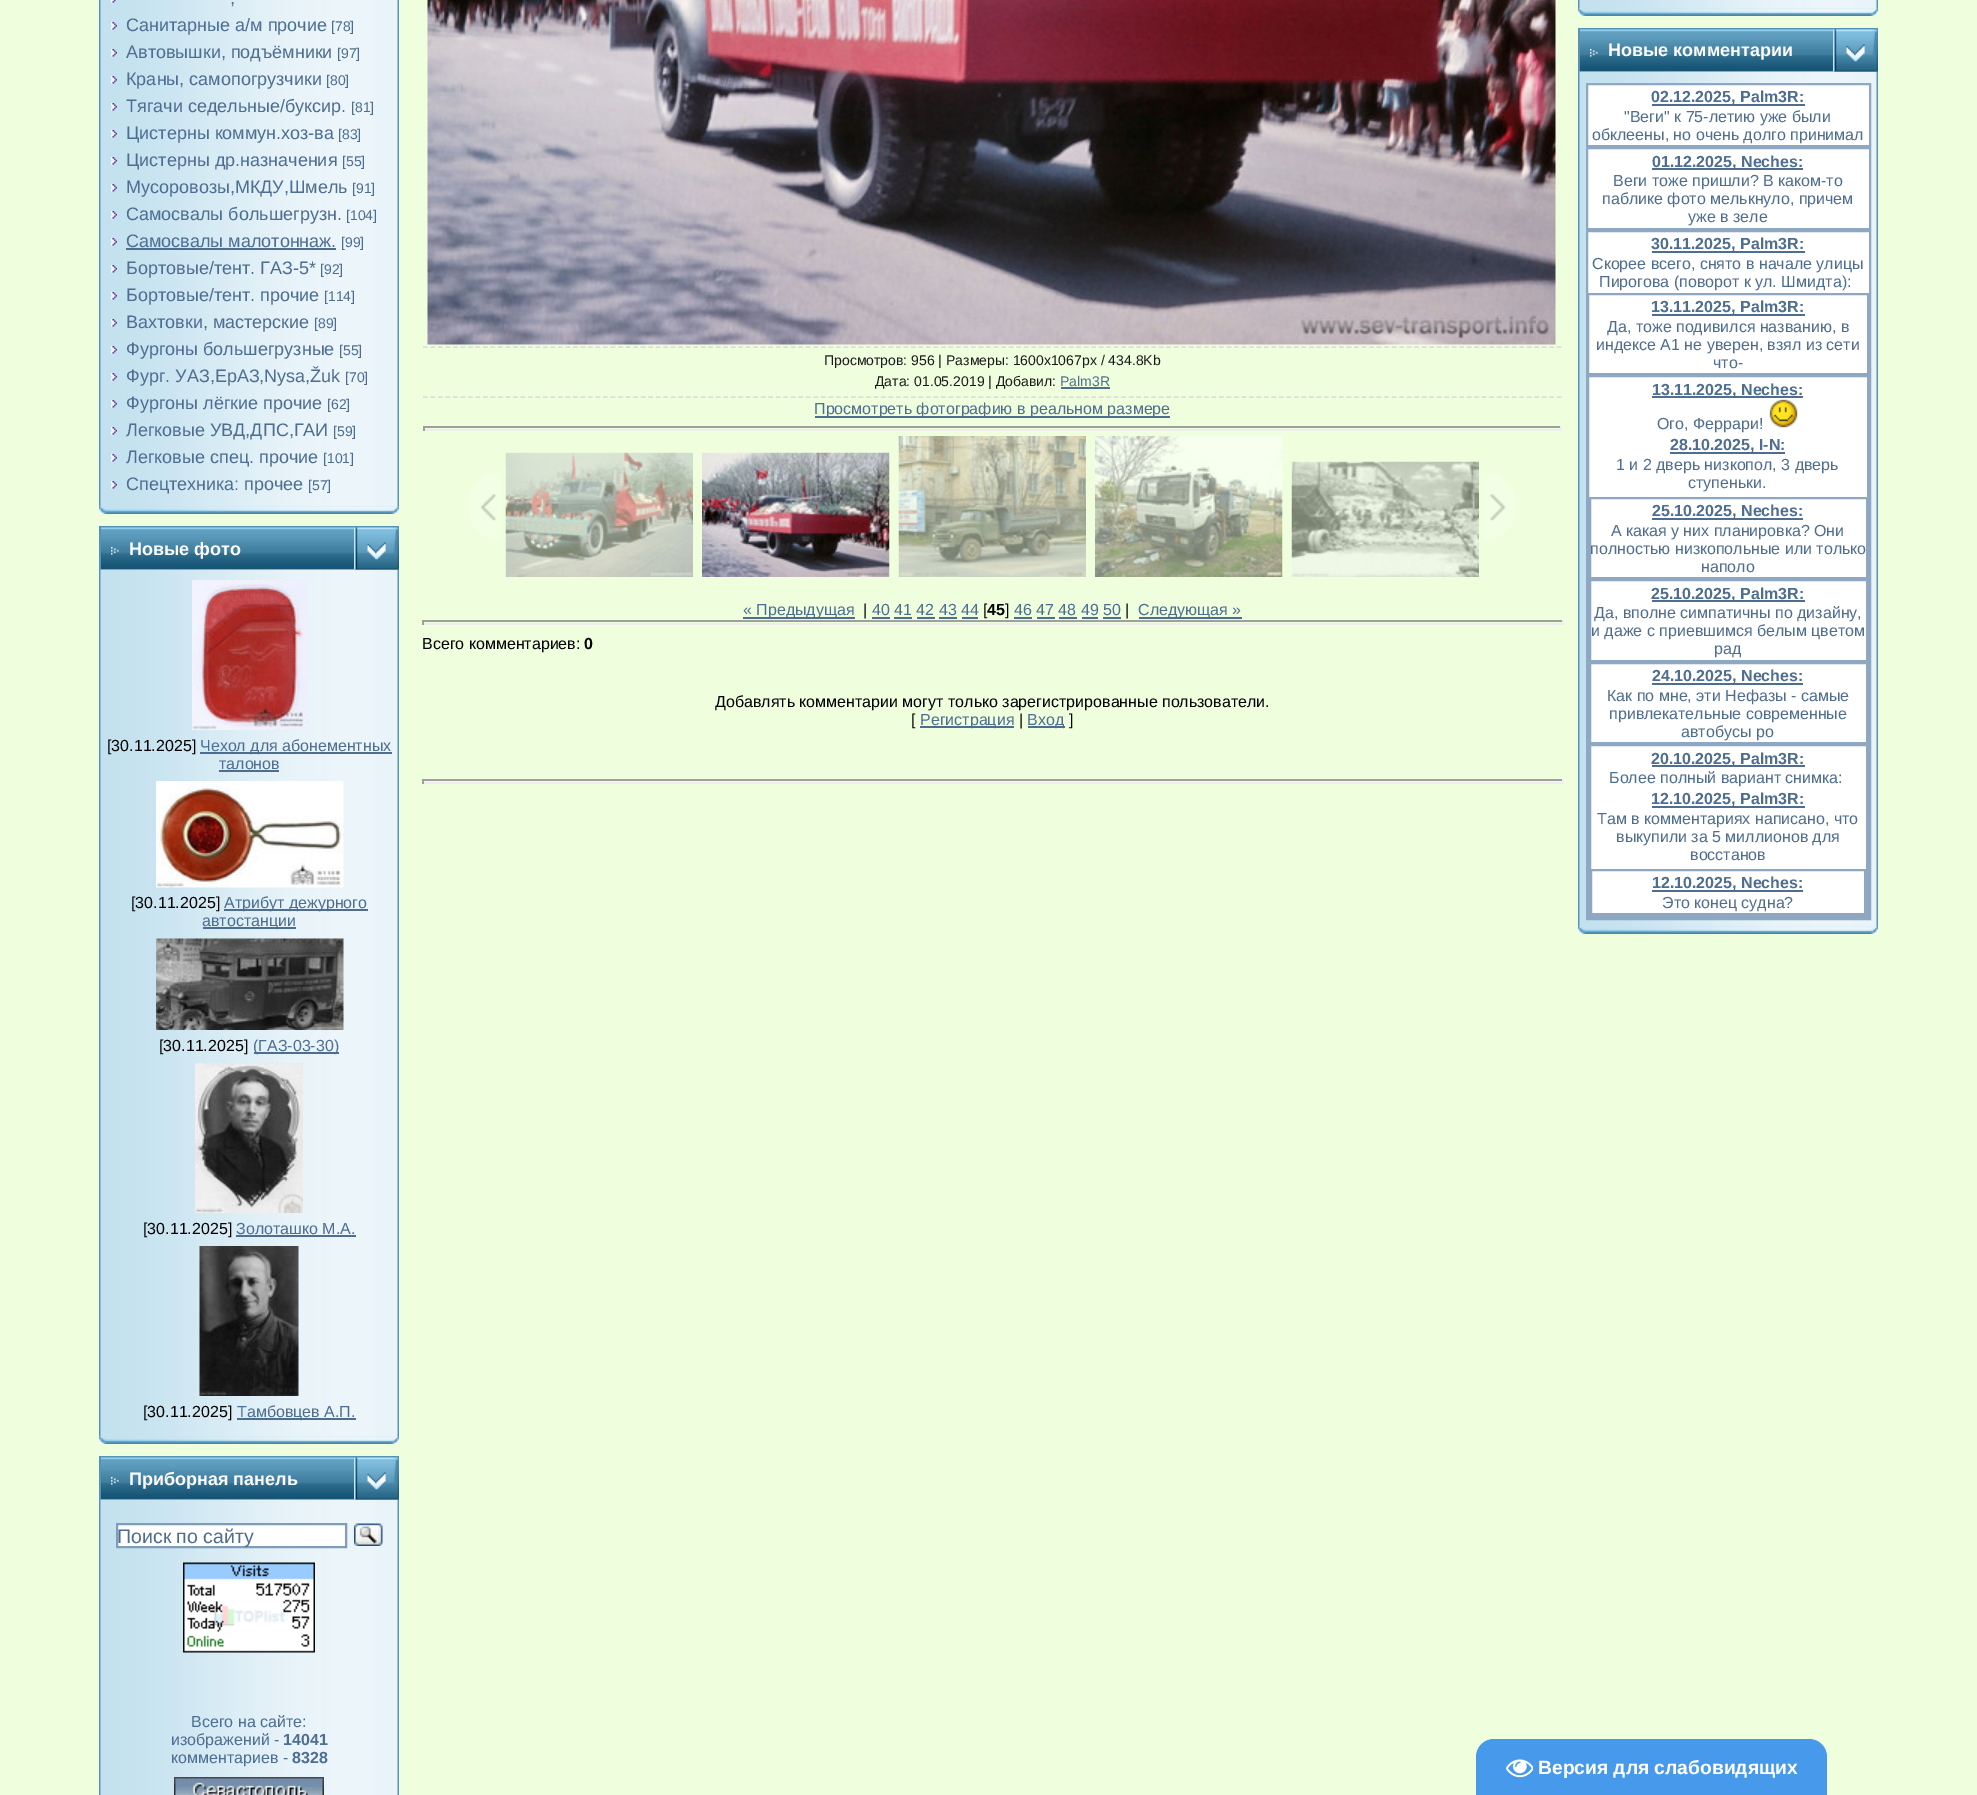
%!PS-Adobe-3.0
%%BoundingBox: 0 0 1977 1795
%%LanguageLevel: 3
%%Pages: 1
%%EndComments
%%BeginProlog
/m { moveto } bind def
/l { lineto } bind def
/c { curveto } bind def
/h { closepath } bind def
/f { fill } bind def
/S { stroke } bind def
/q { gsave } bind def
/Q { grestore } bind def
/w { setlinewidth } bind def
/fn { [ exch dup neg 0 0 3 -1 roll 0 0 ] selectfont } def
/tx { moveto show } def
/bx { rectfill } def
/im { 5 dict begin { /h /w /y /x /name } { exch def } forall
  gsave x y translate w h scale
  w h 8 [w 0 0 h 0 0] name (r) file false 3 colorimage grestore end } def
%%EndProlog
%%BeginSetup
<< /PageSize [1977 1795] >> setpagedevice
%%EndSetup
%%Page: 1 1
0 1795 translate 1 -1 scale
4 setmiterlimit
0.937 1 0.871 setrgbcolor
0 0 1977 1795 bx
(image0.raw) 99 0 300 507 im
(image1.raw) 111 0 5 3 im
/LiberationSans-Regular 18 fn
0.302 0.427 0.569 setrgbcolor
(,) 230 4 tx
(image2.raw) 111 22 6 8 im
(Санитарные а/м прочие) 126 31 tx
/LiberationSans-Regular 14 fn
([78]) 331 31 tx
(image2.raw) 111 49 6 8 im
/LiberationSans-Regular 18 fn
(Автовышки, подъёмники) 126 58 tx
/LiberationSans-Regular 14 fn
([97]) 337 58 tx
(image2.raw) 111 76 6 8 im
/LiberationSans-Regular 18 fn
(Краны, самопогрузчики) 126 85 tx
/LiberationSans-Regular 14 fn
([80]) 326 85 tx
(image2.raw) 111 103 6 8 im
/LiberationSans-Regular 18 fn
(Тягачи седельные/буксир.) 126 112 tx
/LiberationSans-Regular 14 fn
([81]) 351 112 tx
(image2.raw) 111 130 6 8 im
/LiberationSans-Regular 18 fn
(Цистерны коммун.хоз-ва) 126 139 tx
/LiberationSans-Regular 14 fn
([83]) 338 139 tx
(image2.raw) 111 157 6 8 im
/LiberationSans-Regular 18 fn
(Цистерны др.назначения) 126 166 tx
/LiberationSans-Regular 14 fn
([55]) 342 166 tx
(image2.raw) 111 184 6 8 im
/LiberationSans-Regular 18 fn
(Мусоровозы,МКДУ,Шмель) 126 193 tx
/LiberationSans-Regular 14 fn
([91]) 352 193 tx
(image2.raw) 111 211 6 8 im
/LiberationSans-Regular 18 fn
(Самосвалы большегрузн.) 126 220 tx
/LiberationSans-Regular 14 fn
([104]) 346 220 tx
(image2.raw) 111 238 6 8 im
/LiberationSans-Regular 18 fn
(Самосвалы малотоннаж.) 126 247 tx
126 248 210 2 bx
/LiberationSans-Regular 14 fn
([99]) 341 247 tx
(image2.raw) 111 265 6 8 im
/LiberationSans-Regular 18 fn
(Бортовые/тент. ГАЗ-5*) 126 274 tx
/LiberationSans-Regular 14 fn
([92]) 320 274 tx
(image2.raw) 111 292 6 8 im
/LiberationSans-Regular 18 fn
(Бортовые/тент. прочие) 126 301 tx
/LiberationSans-Regular 14 fn
([114]) 324 301 tx
(image2.raw) 111 319 6 8 im
/LiberationSans-Regular 18 fn
(Вахтовки, мастерские) 126 328 tx
/LiberationSans-Regular 14 fn
([89]) 314 328 tx
(image2.raw) 111 346 6 8 im
/LiberationSans-Regular 18 fn
(Фургоны большегрузные) 126 355 tx
/LiberationSans-Regular 14 fn
([55]) 339 355 tx
(image2.raw) 111 373 6 8 im
/LiberationSans-Regular 18 fn
(Фург. УАЗ,ЕрАЗ,Nysa,Žuk) 126 382 tx
/LiberationSans-Regular 14 fn
([70]) 345 382 tx
(image2.raw) 111 400 6 8 im
/LiberationSans-Regular 18 fn
(Фургоны лёгкие прочие) 126 409 tx
/LiberationSans-Regular 14 fn
([62]) 327 409 tx
(image2.raw) 111 427 6 8 im
/LiberationSans-Regular 18 fn
(Легковые УВД,ДПС,ГАИ) 126 436 tx
/LiberationSans-Regular 14 fn
([59]) 333 436 tx
(image2.raw) 111 454 6 8 im
/LiberationSans-Regular 18 fn
(Легковые спец. прочие) 126 463 tx
/LiberationSans-Regular 14 fn
([101]) 323 463 tx
(image2.raw) 111 481 6 8 im
/LiberationSans-Regular 18 fn
(Спецтехника: прочее) 126 490 tx
/LiberationSans-Regular 14 fn
([57]) 308 490 tx
(image3.raw) 99 506 300 8 im
(image4.raw) 99 526 255 44 im
0.337 0.58 0.71 setrgbcolor
99 527 2 43 bx
(image5.raw) 111 547 8 8 im
/LiberationSans-Bold 18 fn
1 setgray
(Новые фото) 129 555 tx
(image6.raw) 354 526 45 44 im
(image8.raw) 99 569 300 868 im
(image7.raw) 354 527 45 43 im
(image9.raw) 192 580 116 150 im
/LiberationSans-Regular 16 fn
0 setgray
([30.11.2025]) 107 751 tx
0.302 0.427 0.569 setrgbcolor
200 752 192 2 bx
(Чехол для абонементных) 200 751 tx
(талонов) 219 769 tx
219 770 60 2 bx
(image10.raw) 156 781 188 107 im
0 setgray
([30.11.2025]) 131 908 tx
0.302 0.427 0.569 setrgbcolor
224 909 144 2 bx
(Атрибут дежурного) 224 908 tx
203 927 93 2 bx
(автостанции) 202 926 tx
(image11.raw) 156 938 188 92 im
0 setgray
([30.11.2025]) 159 1051 tx
0.302 0.427 0.569 setrgbcolor
254 1052 85 2 bx
(\(ГАЗ-03-30\)) 253 1051 tx
(image12.raw) 195 1063 108 150 im
0 setgray
([30.11.2025]) 143 1234 tx
0.302 0.427 0.569 setrgbcolor
(Золоташко М.А.) 236 1234 tx
236 1235 120 2 bx
(image13.raw) 199 1246 100 150 im
0 setgray
([30.11.2025]) 143 1417 tx
0.302 0.427 0.569 setrgbcolor
237 1418 119 2 bx
(Тамбовцев А.П.) 237 1417 tx
(image3.raw) 99 1436 300 8 im
(image4.raw) 99 1456 255 44 im
0.337 0.58 0.71 setrgbcolor
99 1457 2 43 bx
(image5.raw) 111 1477 8 8 im
/LiberationSans-Bold 18 fn
1 setgray
(Приборная панель) 129 1485 tx
(image6.raw) 354 1456 45 44 im
(image14.raw) 99 1499 300 296 im
(image7.raw) 354 1457 45 43 im
117 1524 m 346 1524 l 346 1547 l 117 1547 l h q f Q
0.498 0.616 0.725 setrgbcolor
2 w
S
/LiberationSans-Regular 19.5 fn
0.302 0.427 0.569 setrgbcolor
(Поиск по сайту) 117 1543 tx
(image15.raw) 354 1523 29 23 im
(image16.raw) 183 1562 132 91 im
/LiberationSans-Regular 16 fn
(Всего на сайте:) 191 1727 tx
(изображений -) 171 1745 tx
/LiberationSans-Bold 16 fn
(14041) 283 1745 tx
/LiberationSans-Regular 16 fn
(комментариев -) 171 1763 tx
/LiberationSans-Bold 16 fn
(8328) 292 1763 tx
(image17.raw) 174 1777 150 18 im
(image18.raw) 427 0 1129 345 im
0.867 setgray
1.5 w
[4.5 3.01] 0 setdash
423 347 m 1561.5 347 l S
423 397 m 1561.5 397 l S
/LiberationSans-Regular 14 fn
0.102 setgray
(Просмотров: 956 | Размеры: 1600x1067px / 434.8Kb) 824 365 tx
(Дата: 01.05.2019 | Добавил:) 875 386 tx
0.302 0.427 0.569 setrgbcolor
(Palm3R) 1060 386 tx
1061 387 49 2 bx
815 416 355 2 bx
/LiberationSans-Regular 16 fn
(Просмотреть фотографию в реальном размере) 814 414 tx
0.624 setgray
423 426 1139 2 bx
0.933 setgray
1560 426 2 5 bx
423 429 1139 2 bx
0.624 setgray
423 426 2 5 bx
(image19.raw) 468 472 33 69 im
(image20.raw) 505 452 188 125 im
(image21.raw) 702 452 188 125 im
(image22.raw) 898 436 188 141 im
(image23.raw) 1095 436 188 141 im
(image24.raw) 1291 461 188 116 im
(image25.raw) 1484 472 32 69 im
0.302 0.427 0.569 setrgbcolor
743 617 112 2 bx
(« Предыдущая) 743 615 tx
0 setgray
(|) 863 615 tx
0.302 0.427 0.569 setrgbcolor
(40 41 42 43 44) 872 615 tx
872 617 18 2 bx
0 setgray
([) 983 615 tx
/LiberationSans-Bold 16 fn
(45) 987 615 tx
/LiberationSans-Regular 16 fn
(]) 1005 615 tx
0.302 0.427 0.569 setrgbcolor
(46 47 48 49 50) 1014 615 tx
1014 617 18 2 bx
0 setgray
(|) 1125 615 tx
0.302 0.427 0.569 setrgbcolor
1139 617 103 2 bx
(Следующая ») 1138 615 tx
894 617 18 2 bx
917 617 18 2 bx
939 617 18 2 bx
962 617 16 2 bx
1037 617 18 2 bx
1059 617 18 2 bx
1082 617 16 2 bx
1103 617 18 2 bx
0.624 setgray
422 620 1141 2 bx
0.933 setgray
1562 620 2 5 bx
422 623 1141 2 bx
0.624 setgray
422 620 2 5 bx
0 setgray
(Всего комментариев:) 422 649 tx
/LiberationSans-Bold 16 fn
(0) 584 649 tx
/LiberationSans-Regular 16 fn
(Добавлять комментарии могут только зарегистрированные пользователи.) 715 707 tx
([) 911 725 tx
0.302 0.427 0.569 setrgbcolor
920 726 94 2 bx
(Регистрация) 920 725 tx
0 setgray
(|) 1019 725 tx
0.302 0.427 0.569 setrgbcolor
1028 726 37 2 bx
(Вход) 1027 725 tx
0 setgray
(]) 1069 725 tx
0.624 setgray
422 779 1141 2 bx
0.933 setgray
1562 779 2 5 bx
422 782 1141 2 bx
0.624 setgray
422 779 2 5 bx
(image26.raw) 1578 0 300 9 im
(image3.raw) 1578 8 300 8 im
(image4.raw) 1578 28 255 44 im
0.337 0.58 0.71 setrgbcolor
1578 29 2 43 bx
(image5.raw) 1590 49 8 8 im
/LiberationSans-Bold 18 fn
1 setgray
(Новые комментарии) 1608 56 tx
(image6.raw) 1833 28 45 44 im
(image27.raw) 1578 71 300 856 im
(image7.raw) 1833 29 45 43 im
1587 84 m 1870 84 l 1870 146 l 1587 146 l h q f Q
0.557 0.659 0.769 setrgbcolor
2 w
[] 0 setdash
S
0.302 0.427 0.569 setrgbcolor
1652 104 153 2 bx
/LiberationSans-Bold 16 fn
(02.12.2025, Palm3R:) 1651 102 tx
/LiberationSans-Regular 16 fn
("Веги" к 75-летию уже были) 1624 122 tx
(обклеены, но очень долго принимал) 1592 140 tx
1 setgray
1587 148 m 1870 148 l 1870 229 l 1587 229 l h q f Q
0.557 0.659 0.769 setrgbcolor
S
0.302 0.427 0.569 setrgbcolor
1652 168 151 2 bx
/LiberationSans-Bold 16 fn
(01.12.2025, Neches:) 1652 167 tx
/LiberationSans-Regular 16 fn
(Веги тоже пришли? В каком-то) 1613 186 tx
(паблике фото мелькнуло, причем) 1602 204 tx
(уже в зеле) 1688 222 tx
1 setgray
1588 232 281 61 bx
0.557 0.659 0.769 setrgbcolor
1587 231 283 688 rectstroke
0.302 0.427 0.569 setrgbcolor
1652 251 153 2 bx
/LiberationSans-Bold 16 fn
(30.11.2025, Palm3R:) 1651 249 tx
/LiberationSans-Regular 16 fn
(Скорее всего, снято в начале улицы) 1592 269 tx
(Пирогова \(поворот к ул. Шмидта\):) 1599 287 tx
1 setgray
1588 294 m 1868 294 l 1868 374 l 1588 374 l h q f Q
0.557 0.659 0.769 setrgbcolor
S
0.302 0.427 0.569 setrgbcolor
1652 314 153 2 bx
/LiberationSans-Bold 16 fn
(13.11.2025, Palm3R:) 1651 312 tx
/LiberationSans-Regular 16 fn
(Да, тоже подивился названию, в) 1607 332 tx
(индексе А1 не уверен, взял из сети) 1596 350 tx
(что-) 1713 368 tx
1 setgray
1589 377 278 120 bx
0.557 0.659 0.769 setrgbcolor
1588 376 280 541 rectstroke
0.302 0.427 0.569 setrgbcolor
1652 396 151 2 bx
/LiberationSans-Bold 16 fn
(13.11.2025, Neches:) 1652 395 tx
/LiberationSans-Regular 16 fn
(Ого, Феррари!) 1657 429 tx
(image28.raw) 1769 399 29 29 im
1670 452 115 2 bx
/LiberationSans-Bold 16 fn
(28.10.2025, I-N:) 1670 450 tx
/LiberationSans-Regular 16 fn
(1 и 2 дверь низкопол, 3 дверь) 1616 470 tx
(ступеньки.) 1688 488 tx
1 setgray
1590 498 m 1867 498 l 1867 578 l 1590 578 l h q f Q
0.557 0.659 0.769 setrgbcolor
S
0.302 0.427 0.569 setrgbcolor
1652 518 151 2 bx
/LiberationSans-Bold 16 fn
(25.10.2025, Neches:) 1652 516 tx
/LiberationSans-Regular 16 fn
(А какая у них планировка? Они) 1611 536 tx
(полностью низкопольные или только) 1590 554 tx
(наполо) 1701 572 tx
1 setgray
1590 580 m 1867 580 l 1867 661 l 1590 661 l h q f Q
0.557 0.659 0.769 setrgbcolor
S
0.302 0.427 0.569 setrgbcolor
1652 600 153 2 bx
/LiberationSans-Bold 16 fn
(25.10.2025, Palm3R:) 1651 599 tx
/LiberationSans-Regular 16 fn
(Да, вполне симпатичны по дизайну,) 1594 618 tx
(и даже с приевшимся белым цветом) 1591 636 tx
(рад) 1714 654 tx
1 setgray
1590 663 m 1867 663 l 1867 743 l 1590 743 l h q f Q
0.557 0.659 0.769 setrgbcolor
S
0.302 0.427 0.569 setrgbcolor
1652 683 151 2 bx
/LiberationSans-Bold 16 fn
(24.10.2025, Neches:) 1652 681 tx
/LiberationSans-Regular 16 fn
(Как по мне, эти Нефазы - самые) 1607 701 tx
(привлекательные современные) 1609 719 tx
(автобусы ро) 1681 737 tx
1 setgray
1591 746 275 123 bx
0.557 0.659 0.769 setrgbcolor
1590 745 277 171 rectstroke
0.302 0.427 0.569 setrgbcolor
1652 765 153 2 bx
/LiberationSans-Bold 16 fn
(20.10.2025, Palm3R:) 1651 764 tx
/LiberationSans-Regular 16 fn
(Более полный вариант снимка:) 1609 783 tx
1652 806 153 2 bx
/LiberationSans-Bold 16 fn
(12.10.2025, Palm3R:) 1651 804 tx
/LiberationSans-Regular 16 fn
(Там в комментариях написано, что) 1597 824 tx
(выкупили за 5 миллионов для) 1616 842 tx
(восстанов) 1690 860 tx
1 setgray
1591 870 m 1865 870 l 1865 914 l 1591 914 l h q f Q
0.557 0.659 0.769 setrgbcolor
S
0.302 0.427 0.569 setrgbcolor
1652 890 151 2 bx
/LiberationSans-Bold 16 fn
(12.10.2025, Neches:) 1652 888 tx
/LiberationSans-Regular 16 fn
(Это конец судна?) 1662 908 tx
(image3.raw) 1578 926 300 8 im
0.275 0.6 0.922 setrgbcolor
1494 1739 m 1809 1739 l 1819 1739 1827 1747 1827 1757 c 1827 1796 l 1476 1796 l 1476 1757 l 1476 1747 1484 1739 1494 1739 c h f
(image29.raw) 1506 1759 27 19 im
/LiberationSans-Bold 19.25 fn
1 setgray
(Версия для слабовидящих) 1538 1774 tx
showpage
%%EOF
